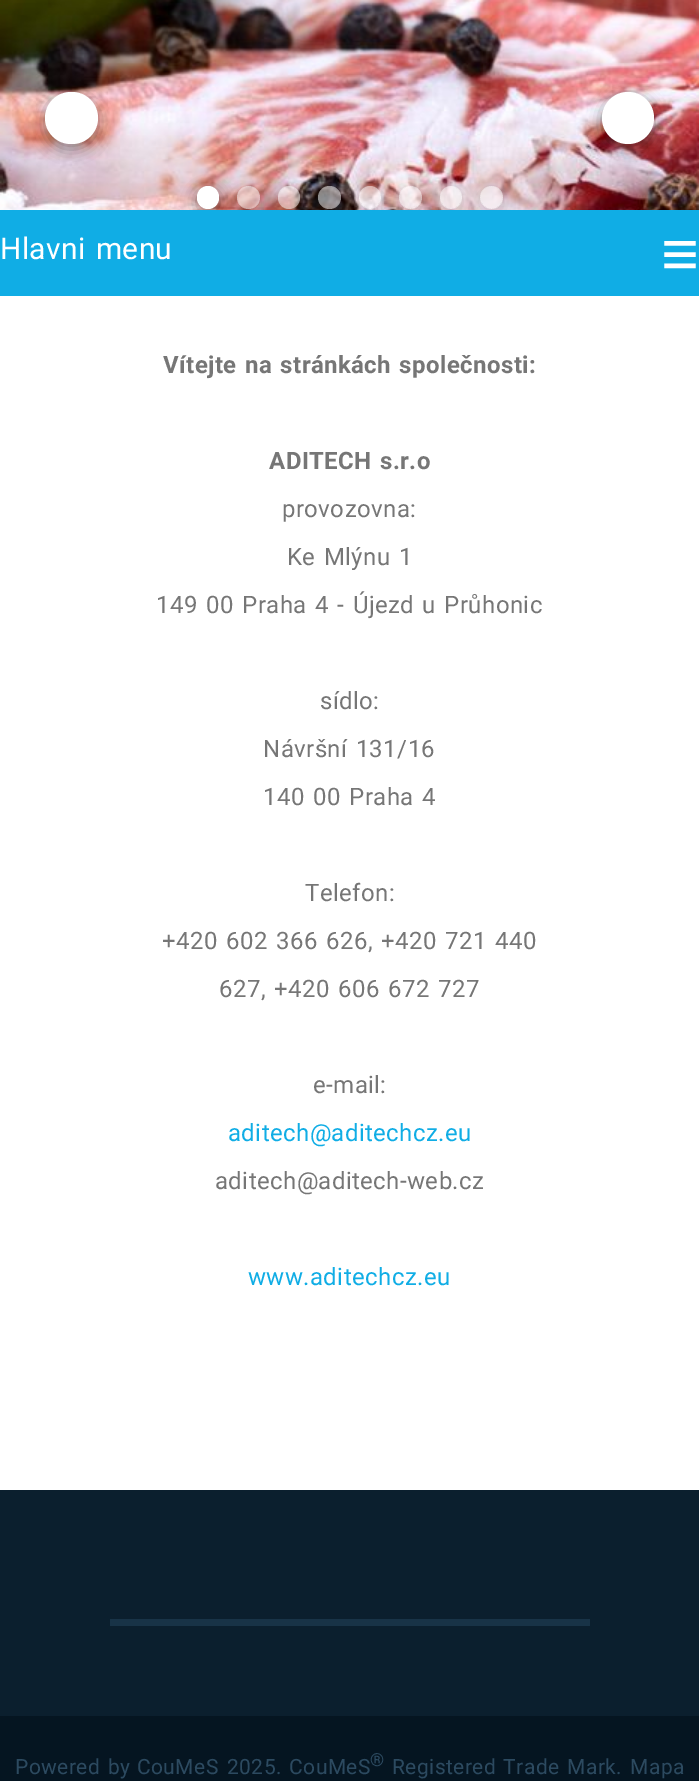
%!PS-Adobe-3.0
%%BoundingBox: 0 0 699 1781
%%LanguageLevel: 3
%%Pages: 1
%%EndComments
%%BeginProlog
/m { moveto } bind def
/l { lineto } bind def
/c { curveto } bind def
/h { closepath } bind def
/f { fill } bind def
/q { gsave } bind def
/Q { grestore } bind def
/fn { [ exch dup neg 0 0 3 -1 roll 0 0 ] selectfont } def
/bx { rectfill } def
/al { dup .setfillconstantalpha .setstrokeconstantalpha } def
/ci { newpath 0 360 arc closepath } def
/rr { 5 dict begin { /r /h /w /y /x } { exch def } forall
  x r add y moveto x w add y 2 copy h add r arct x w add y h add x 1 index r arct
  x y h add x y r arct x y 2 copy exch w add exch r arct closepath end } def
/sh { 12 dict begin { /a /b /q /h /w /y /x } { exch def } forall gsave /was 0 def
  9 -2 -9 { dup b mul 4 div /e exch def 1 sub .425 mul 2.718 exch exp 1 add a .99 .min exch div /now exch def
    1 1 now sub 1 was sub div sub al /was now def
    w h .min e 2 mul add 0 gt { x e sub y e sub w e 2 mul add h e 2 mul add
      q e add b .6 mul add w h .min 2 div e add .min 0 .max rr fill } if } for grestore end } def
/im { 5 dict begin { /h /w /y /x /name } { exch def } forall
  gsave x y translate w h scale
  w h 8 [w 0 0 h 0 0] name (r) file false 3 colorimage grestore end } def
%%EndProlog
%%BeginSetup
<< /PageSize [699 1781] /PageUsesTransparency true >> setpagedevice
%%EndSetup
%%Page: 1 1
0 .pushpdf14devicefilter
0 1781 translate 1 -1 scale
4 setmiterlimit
1 setgray
0 0 699 1781 bx
(image0.raw) 0 0 699 210 im
0 setgray
45 96 53 53 26.5 7.5 0.23 sh
45 96 53 53 26.5 7.5 0.16 sh
1 setgray
45 92 53 52 26 rr f
0 setgray
602 96 52 53 26 7.5 0.23 sh
602 96 52 53 26 7.5 0.16 sh
1 setgray
628 118 26 ci f
0.063 0.678 0.898 setrgbcolor
0 210 699 86 bx
q
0 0 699 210 rectclip
0 setgray
197 191 22 22 11 7.5 0.23 sh
197 191 22 22 11 7.5 0.16 sh
Q
1 setgray
197 186 22 23 11 rr f
q
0 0 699 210 rectclip
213 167 m 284 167 l 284 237 l 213 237 l h 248.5 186 m 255 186 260 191 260 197.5 c 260 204 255 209 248.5 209 c 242 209 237 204 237 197.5 c 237 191 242 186 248.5 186 c h eoclip newpath
0 setgray
237 191 23 22 11 7.5 0.12 sh
Q
0.5 al
248.5 197.5 11.5 ci f
q
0 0 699 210 rectclip
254 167 m 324 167 l 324 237 l 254 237 l h 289 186 m 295 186 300 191 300 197 c 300 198 l 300 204 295 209 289 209 c 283 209 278 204 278 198 c 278 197 l 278 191 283 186 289 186 c h eoclip newpath
1 al
0 setgray
278 191 22 22 11 7.5 0.12 sh
Q
278 186 22 23 11 rr f
329.5 197.5 11.5 ci f
q
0 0 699 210 rectclip
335 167 m 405 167 l 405 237 l 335 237 l h 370 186 m 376 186 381 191 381 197 c 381 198 l 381 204 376 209 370 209 c 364 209 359 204 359 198 c 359 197 l 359 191 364 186 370 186 c h eoclip newpath
1 al
0 setgray
359 191 22 22 11 7.5 0.12 sh
Q
359 186 22 23 11 rr f
q
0 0 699 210 rectclip
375 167 m 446 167 l 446 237 l 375 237 l h 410.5 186 m 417 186 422 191 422 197.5 c 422 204 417 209 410.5 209 c 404 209 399 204 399 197.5 c 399 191 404 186 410.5 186 c h eoclip newpath
1 al
0 setgray
399 191 23 22 11 7.5 0.12 sh
Q
410.5 197.5 11.5 ci f
q
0 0 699 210 rectclip
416 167 m 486 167 l 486 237 l 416 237 l h 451 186 m 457 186 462 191 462 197 c 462 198 l 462 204 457 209 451 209 c 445 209 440 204 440 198 c 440 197 l 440 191 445 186 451 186 c h eoclip newpath
1 al
0 setgray
440 191 22 22 11 7.5 0.12 sh
Q
440 186 22 23 11 rr f
q
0 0 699 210 rectclip
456 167 m 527 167 l 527 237 l 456 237 l h 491.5 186 m 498 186 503 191 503 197.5 c 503 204 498 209 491.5 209 c 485 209 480 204 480 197.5 c 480 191 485 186 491.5 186 c h eoclip newpath
1 al
0 setgray
480 191 23 22 11 7.5 0.12 sh
Q
491.5 197.5 11.5 ci f
/Roboto-Regular 30 fn
1 al
0 259 m 2 0 32 0.4 0 (Hlavni menu) awidthshow
/LiberationSans-Regular 65 fn
661 276 m 0.4 0 (≡) ashow
/Roboto-Bold 24 fn
0.463 setgray
163 373 m 2 0 32 0.4 0 (Vítejte na stránkách společnosti:) awidthshow
269 469 m 2 0 32 0.4 0 (ADITECH s.r.o) awidthshow
/Roboto-Regular 24 fn
282 517 m 0.4 0 (provozovna:) ashow
287 565 m 2 0 32 0.4 0 (Ke Mlýnu 1) awidthshow
156 613 m 2 0 32 0.4 0 (149 00 Praha 4 - Újezd u Průhonic) awidthshow
320 709 m 0.4 0 (sídlo:) ashow
263 757 m 2 0 32 0.4 0 (Návršní 131/16) awidthshow
263 805 m 2 0 32 0.4 0 (140 00 Praha 4) awidthshow
305 901 m 0.4 0 (Telefon:) ashow
162 949 m 2 0 32 0.4 0 (+420 602 366 626, +420 721 440) awidthshow
219 997 m 2 0 32 0.4 0 (627, +420 606 672 727) awidthshow
313 1093 m 0.4 0 (e-mail:) ashow
0.063 0.678 0.898 setrgbcolor
228 1141 m 0.4 0 (aditech@aditechcz.eu) ashow
0.463 setgray
215 1189 m 0.4 0 (aditech@aditech-web.cz) ashow
0.063 0.678 0.898 setrgbcolor
248 1285 m 0.4 0 (www.aditechcz.eu) ashow
0.043 0.122 0.18 setrgbcolor
0 1490 699 226 bx
0.094 0.2 0.278 setrgbcolor
110 1619 480 7 bx
0.02 0.082 0.129 setrgbcolor
0 1716 699 65 bx
/Roboto-Regular 21 fn
0.173 0.29 0.376 setrgbcolor
15 1774 m 2 0 32 0.4 0 (Powered by) awidthshow
137 1774 m 0.4 0 (CouMeS) ashow
227 1774 m 2 0 32 0.4 0 (2025. CouMeS) awidthshow
/Roboto-Regular 18 fn
370 1766 m 0.4 0 (®) ashow
/Roboto-Regular 21 fn
392 1774 m 2 0 32 0.4 0 (Registered Trade Mark.) awidthshow
630 1774 m 0.4 0 (Mapa) ashow
.poppdf14devicefilter showpage
%%EOF
